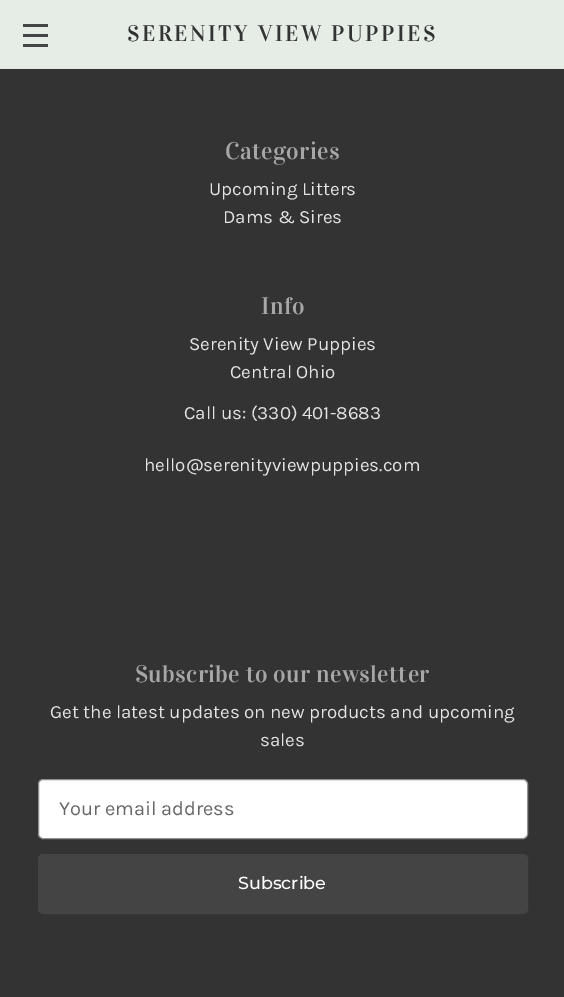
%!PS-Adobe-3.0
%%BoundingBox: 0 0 564 997
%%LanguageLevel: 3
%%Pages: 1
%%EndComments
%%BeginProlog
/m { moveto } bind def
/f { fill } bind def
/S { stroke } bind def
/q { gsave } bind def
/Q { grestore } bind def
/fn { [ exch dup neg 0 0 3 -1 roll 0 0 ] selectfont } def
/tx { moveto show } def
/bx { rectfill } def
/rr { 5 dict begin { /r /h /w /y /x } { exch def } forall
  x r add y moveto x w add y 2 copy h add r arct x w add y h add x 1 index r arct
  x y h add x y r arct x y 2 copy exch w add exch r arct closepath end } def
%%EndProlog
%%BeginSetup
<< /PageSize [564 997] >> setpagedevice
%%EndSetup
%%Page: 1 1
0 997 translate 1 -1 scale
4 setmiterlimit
0.2 setgray
0 0 564 997 bx
0.898 0.929 0.902 setrgbcolor
0 0 564 68 bx
0.898 setgray
0 68 564 1 bx
0.267 setgray
23 34 25 3 bx
23 24 25 3 bx
23 44 25 3 bx
/Vidaloka-Regular 22.5 fn
0.2 setgray
127 41 m 2.5 0 (SERENITY VIEW PUPPIES) ashow
/Vidaloka-Regular 24 fn
0.655 setgray
225 159 m 0.3 0 (Categories) ashow
/Karla-Regular 18.75 fn
0.89 setgray
(Upcoming Litters) 209 195 tx
(Dams & Sires) 223 223 tx
/Vidaloka-Regular 24 fn
0.655 setgray
261 314 m 0.3 0 (Info) ashow
/Karla-Regular 18.75 fn
0.89 setgray
(Serenity View Puppies) 189 350 tx
(Central Ohio) 230 378 tx
(Call us: \(330\) 401-8683) 184 419 tx
(hello@serenityviewpuppies.com) 144 471 tx
/Vidaloka-Regular 24 fn
0.655 setgray
135 682 m 0.3 0 (Subscribe to our newsletter) ashow
/Karla-Regular 18.75 fn
0.89 setgray
(Get the latest updates on new products and upcoming) 50 718 tx
(sales) 260 746 tx
1 setgray
38.5 779.5 489 59 4.5 rr q f Q
0.561 setgray
S
/Karla-Regular 20 fn
0.4 setgray
(Your email address) 59 815 tx
0.267 setgray
38.5 854.5 489 59 4.5 rr q f Q
S
/Montserrat-Medium 17.5 fn
1 setgray
(Subscribe) 238 889 tx
showpage
%%EOF
